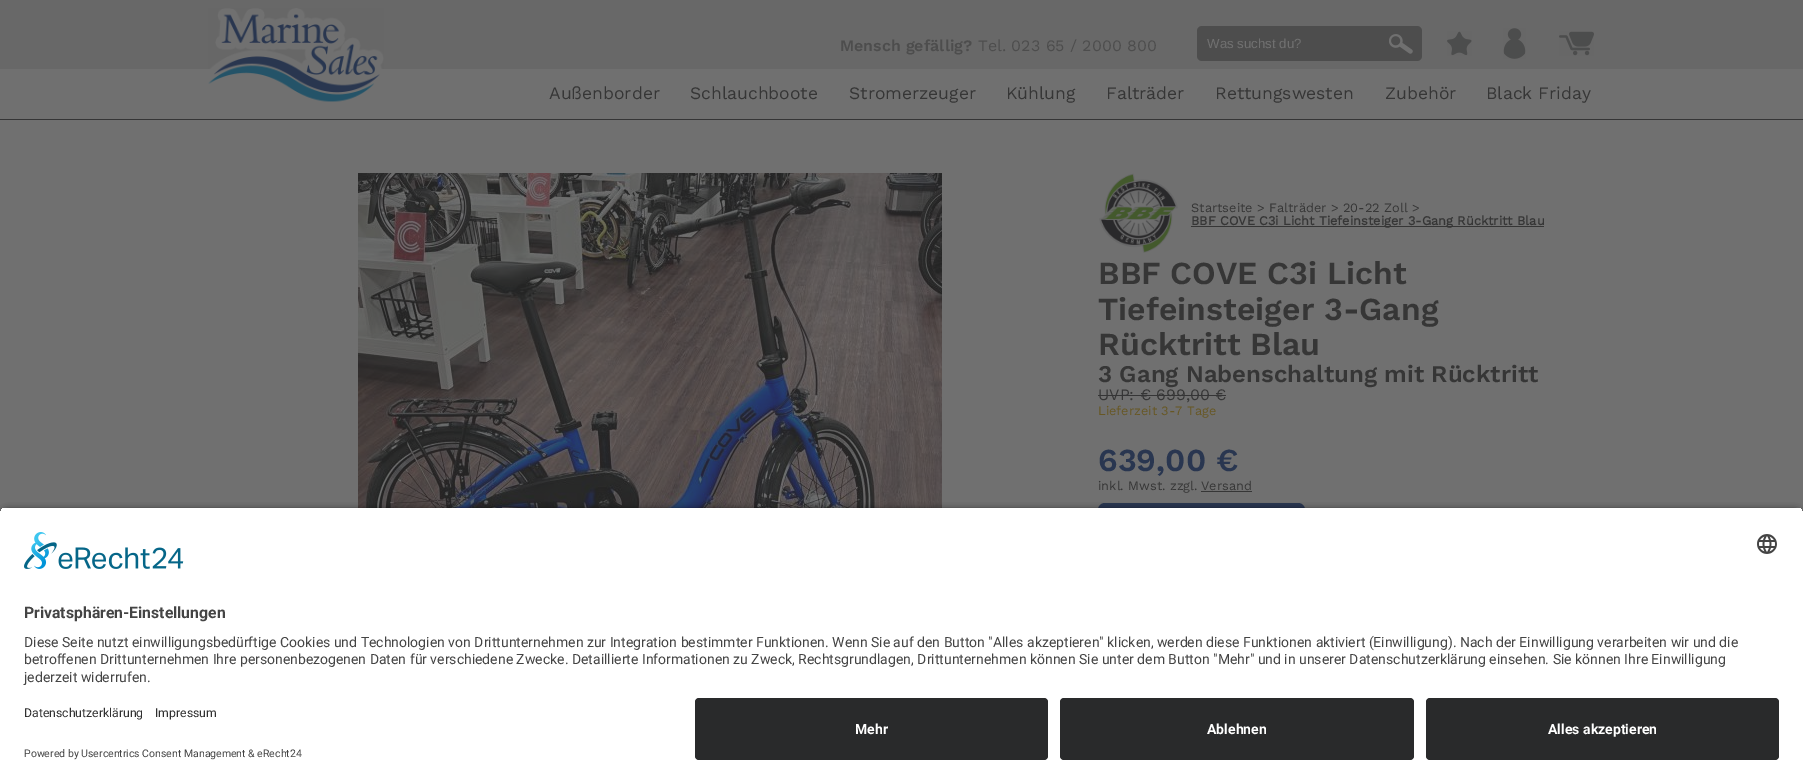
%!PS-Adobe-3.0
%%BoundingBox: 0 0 1803 784
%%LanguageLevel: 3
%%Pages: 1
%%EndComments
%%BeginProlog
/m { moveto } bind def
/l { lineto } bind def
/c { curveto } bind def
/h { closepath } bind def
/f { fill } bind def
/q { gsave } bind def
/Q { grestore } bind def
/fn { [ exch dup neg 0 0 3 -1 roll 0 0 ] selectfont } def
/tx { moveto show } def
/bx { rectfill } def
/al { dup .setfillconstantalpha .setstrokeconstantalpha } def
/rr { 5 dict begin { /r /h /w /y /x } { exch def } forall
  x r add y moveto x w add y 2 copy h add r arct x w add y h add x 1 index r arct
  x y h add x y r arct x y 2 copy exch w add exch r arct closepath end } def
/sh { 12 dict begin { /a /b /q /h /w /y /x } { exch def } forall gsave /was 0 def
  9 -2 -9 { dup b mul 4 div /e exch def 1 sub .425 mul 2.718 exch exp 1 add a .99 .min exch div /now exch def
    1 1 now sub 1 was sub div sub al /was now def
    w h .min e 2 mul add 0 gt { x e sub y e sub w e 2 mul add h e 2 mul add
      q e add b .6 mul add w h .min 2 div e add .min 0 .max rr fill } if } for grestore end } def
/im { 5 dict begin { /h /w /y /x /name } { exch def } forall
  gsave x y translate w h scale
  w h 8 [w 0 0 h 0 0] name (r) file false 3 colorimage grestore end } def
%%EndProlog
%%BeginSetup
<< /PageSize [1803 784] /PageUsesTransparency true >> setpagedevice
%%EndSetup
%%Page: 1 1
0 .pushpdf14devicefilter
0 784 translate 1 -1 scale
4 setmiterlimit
0.439 setgray
0 0 1803 784 bx
0.408 setgray
0 0 1803 69 bx
(image0.raw) 208 8 176 94 im
/WorkSans-SemiBold 16 fn
0.302 setgray
(Mensch gefällig?) 840 51 tx
/WorkSans-Regular 16 fn
(Tel. 023 65 / 2000 800) 978 51 tx
1197 26 225 35 5 rr f
/LiberationSans-Regular 13.25 fn
0.439 setgray
(Was suchst du?) 1207 48 tx
(image1.raw) 1389 34 24 20 im
(image2.raw) 1447 31 25 25 im
(image3.raw) 1503 28 23 31 im
(image4.raw) 1559 31 35 25 im
0.208 0.208 0.212 setrgbcolor
0 119 1803 1 bx
/WorkSans-Regular 17.5 fn
0.212 setgray
(Außenborder) 549 99 tx
(Schlauchboote) 690 99 tx
(Stromerzeuger) 849 99 tx
(Kühlung) 1006 99 tx
(Falträder) 1106 99 tx
(Rettungswesten) 1215 99 tx
(Zubehör) 1385 99 tx
(Black Friday) 1486 99 tx
(image5.raw) 358 173 584 335 im
(image6.raw) 1099 173 79 80 im
/WorkSans-Regular 12.8 fn
(Startseite) 1191 212 tx
(>) 1257 212 tx
(Falträder) 1269 212 tx
(>) 1331 212 tx
(20-22 Zoll) 1343 212 tx
(>) 1412 212 tx
1191 226 353 1 bx
/WorkSans-Bold 12.8 fn
(BBF COVE C3i Licht Tiefeinsteiger 3-Gang Rücktritt Blau) 1191 225 tx
/WorkSans-SemiBold 32 fn
(BBF COVE C3i Licht) 1098 284 tx
(Tiefeinsteiger 3-Gang) 1098 320 tx
(Rücktritt Blau) 1098 355 tx
/WorkSans-SemiBold 24 fn
(3 Gang Nabenschaltung mit Rücktritt) 1098 382 tx
/WorkSans-Regular 16 fn
(UVP: € 699,00 €) 1098 400 tx
0.208 0.208 0.212 setrgbcolor
1098 395 128 1 bx
/WorkSans-Regular 12.8 fn
0.404 0.341 0.141 setrgbcolor
(Lieferzeit 3-7 Tage) 1098 415 tx
/WorkSans-SemiBold 32 fn
0.161 0.212 0.314 setrgbcolor
(639,00 €) 1098 471 tx
/WorkSans-Regular 12.8 fn
0.212 setgray
(inkl. Mwst. zzgl.) 1098 490 tx
(Versand) 1201 490 tx
1201 491 51 1 bx
0.161 0.212 0.314 setrgbcolor
1098 503 207 36 7 rr f
0 setgray
0 510 1803 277 8 3.5 0.8 sh
q
8 507 m 1795 507 l 1799.5 507 1803 510.5 1803 515 c 1803 690 l 0 690 l 0 515 l 0 510.5 3.5 507 8 507 c h clip newpath
1 setgray
0 508 1803 182 bx
Q
(image7.raw) 24 532 160 37 im
(image8.raw) 1757 534 20 20 im
/Roboto-Bold 15.75 fn
0.267 setgray
(Privatsphären-Einstellungen) 24 618 tx
/Roboto-Regular 14 fn
(Diese Seite nutzt einwilligungsbedürftige Cookies und Technologien von Drittunternehmen zur Integration bestimmter Funktionen. Wenn Sie auf den Button "Alles akzeptieren" klicken, werden diese Funktionen aktiviert \(Einwilligung\). Nach der Einwilligung verarbeiten wir und die) 24 647 tx
(betroffenen Drittunternehmen Ihre personenbezogenen Daten für verschiedene Zwecke. Detaillierte Informationen zu Zweck, Rechtsgrundlagen, Drittunternehmen können Sie unter dem Button "Mehr" und in unserer Datenschutzerklärung einsehen. Sie können Ihre Einwilligung) 24 664 tx
(jederzeit widerrufen.) 24 682 tx
1 setgray
0 690 1803 94 bx
/Roboto-Regular 12.25 fn
0.188 setgray
(Datenschutzerklärung) 24 717 tx
(Impressum) 155 717 tx
/Roboto-Regular 10.5 fn
0.267 setgray
(Powered by Usercentrics Consent Management & eRecht24) 24 757 tx
0.161 0.165 0.169 setrgbcolor
695 698 353 62 4 rr f
/Roboto-Bold 14 fn
1 setgray
(Mehr) 855 734 tx
0.161 0.165 0.169 setrgbcolor
1060 698 354 62 4 rr f
1 setgray
(Ablehnen) 1207 734 tx
0.161 0.165 0.169 setrgbcolor
1426 698 353 62 4 rr f
1 setgray
(Alles akzeptieren) 1548 734 tx
.poppdf14devicefilter showpage
%%EOF
